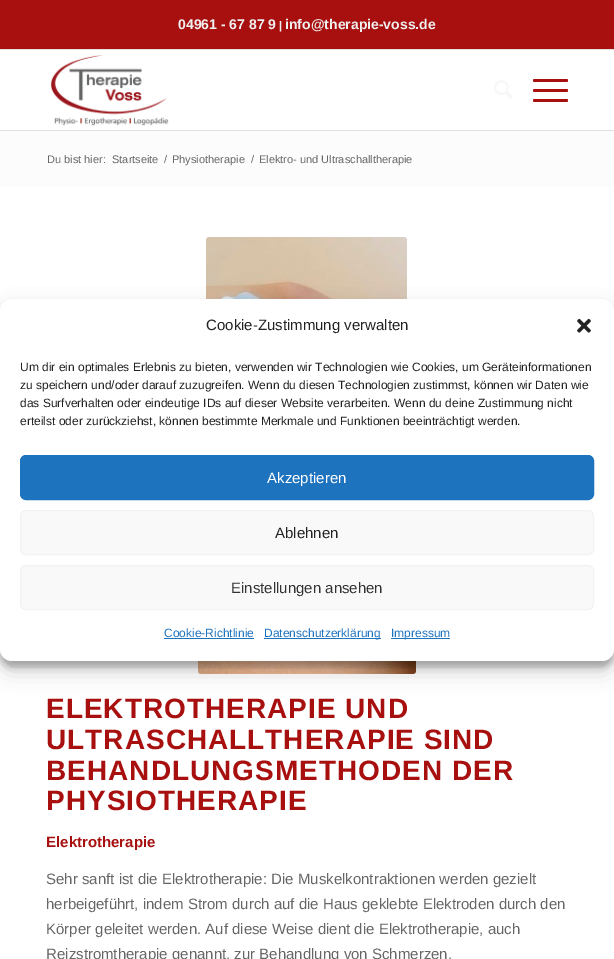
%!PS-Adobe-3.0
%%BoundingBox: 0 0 614 959
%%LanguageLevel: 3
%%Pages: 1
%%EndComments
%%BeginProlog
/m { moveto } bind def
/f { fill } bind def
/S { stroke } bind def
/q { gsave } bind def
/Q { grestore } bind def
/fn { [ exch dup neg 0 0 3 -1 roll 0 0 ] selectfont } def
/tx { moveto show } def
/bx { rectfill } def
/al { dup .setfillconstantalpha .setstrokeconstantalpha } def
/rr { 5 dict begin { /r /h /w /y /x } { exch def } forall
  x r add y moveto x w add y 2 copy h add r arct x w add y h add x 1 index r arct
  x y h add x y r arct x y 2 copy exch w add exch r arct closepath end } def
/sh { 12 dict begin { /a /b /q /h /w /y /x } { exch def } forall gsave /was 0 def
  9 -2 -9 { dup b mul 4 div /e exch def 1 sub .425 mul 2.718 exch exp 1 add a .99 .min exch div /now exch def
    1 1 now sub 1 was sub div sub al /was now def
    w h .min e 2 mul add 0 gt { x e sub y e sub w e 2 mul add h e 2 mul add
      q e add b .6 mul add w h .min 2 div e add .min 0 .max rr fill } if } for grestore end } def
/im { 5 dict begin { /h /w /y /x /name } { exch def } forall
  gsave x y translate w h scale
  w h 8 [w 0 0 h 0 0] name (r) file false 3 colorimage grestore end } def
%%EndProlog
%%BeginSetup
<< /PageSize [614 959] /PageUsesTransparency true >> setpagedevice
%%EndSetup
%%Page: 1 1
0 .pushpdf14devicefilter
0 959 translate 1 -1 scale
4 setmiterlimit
1 setgray
0 0 614 959 bx
0.659 0.063 0.063 setrgbcolor
0 0 614 49 bx
0.882 setgray
0 49 614 1 bx
/LiberationSans-Bold 14 fn
0.941 setgray
(04961 - 67 87 9) 178 29 tx
/LiberationSans-Bold 11 fn
(|) 279 29 tx
/LiberationSans-Bold 14 fn
(info@therapie-voss.de) 285 29 tx
0.882 setgray
0 130 614 1 bx
(image0.raw) 50 55 119 71 im
(image1.raw) 494 80 19 19 im
0.659 0.063 0.063 setrgbcolor
533 89 35 3 1.5 rr f
533 79 35 3 1.5 rr f
533 99 35 3 1.5 rr f
0.988 setgray
0 131 614 56 bx
/LiberationSans-Regular 11 fn
0.4 setgray
(Du bist hier:) 47 163 tx
(Startseite) 112 163 tx
(/) 164 163 tx
(Physiotherapie) 172 163 tx
(/) 251 163 tx
(Elektro- und Ultraschalltherapie) 259 163 tx
(image2.raw) 206 237 201 62 im
(image3.raw) 198 661 218 13 im
/LiberationSans-Bold 28 fn
0.659 0.063 0.063 setrgbcolor
46 718 m 1 0 (ELEKTROTHERAPIE UND) ashow
46 749 m 1 0 (ULTRASCHALLTHERAPIE SIND) ashow
46 780 m 1 0 (BEHANDLUNGSMETHODEN DER) ashow
46 810 m 1 0 (PHYSIOTHERAPIE) ashow
/LiberationSans-Bold 15 fn
(Elektrotherapie) 46 847 tx
/LiberationSans-Regular 15 fn
0.4 setgray
(Sehr sanft ist die Elektrotherapie: Die Muskelkontraktionen werden gezielt) 46 884 tx
(herbeigeführt, indem Strom durch auf die Haus geklebte Elektroden durch den) 46 909 tx
(Körper geleitet werden. Auf diese Weise dient die Elektrotherapie, auch) 46 934 tx
(Reizstromtherapie genannt, zur Behandlung von Schmerzen,) 46 959 tx
0 setgray
0 305 614 362 12 3 0.23 sh
0 309 614 362 12 10 0.19 sh
1 setgray
0 299 614 362 12 rr f
0.133 setgray
(Cookie-Zustimmung verwalten) 206 330 tx
(image4.raw) 577 318 14 15 im
/LiberationSans-Regular 12 fn
(Um dir ein optimales Erlebnis zu bieten, verwenden wir Technologien wie Cookies, um Geräteinformationen) 20 371 tx
(zu speichern und/oder darauf zuzugreifen. Wenn du diesen Technologien zustimmst, können wir Daten wie) 20 389 tx
(das Surfverhalten oder eindeutige IDs auf dieser Website verarbeiten. Wenn du deine Zustimmung nicht) 20 407 tx
(erteilst oder zurückziehst, können bestimmte Merkmale und Funktionen beeinträchtigt werden.) 20 425 tx
0.118 0.451 0.745 setrgbcolor
20.5 455.5 573 44 5.5 rr q f Q
S
/LiberationSans-Regular 15 fn
1 setgray
(Akzeptieren) 267 483 tx
0.976 setgray
20.5 510.5 573 44 5.5 rr q f Q
0.949 setgray
S
0.133 setgray
(Ablehnen) 275 538 tx
0.976 setgray
20.5 565.5 573 44 5.5 rr q f Q
0.949 setgray
S
0.2 setgray
(Einstellungen ansehen) 231 593 tx
/LiberationSans-Regular 12 fn
0.118 0.451 0.745 setrgbcolor
(Cookie-Richtlinie) 164 637 tx
164 638 90 1 bx
264 638 117 1 bx
(Datenschutzerklärung) 264 637 tx
391 638 59 1 bx
(Impressum) 391 637 tx
.poppdf14devicefilter showpage
%%EOF
